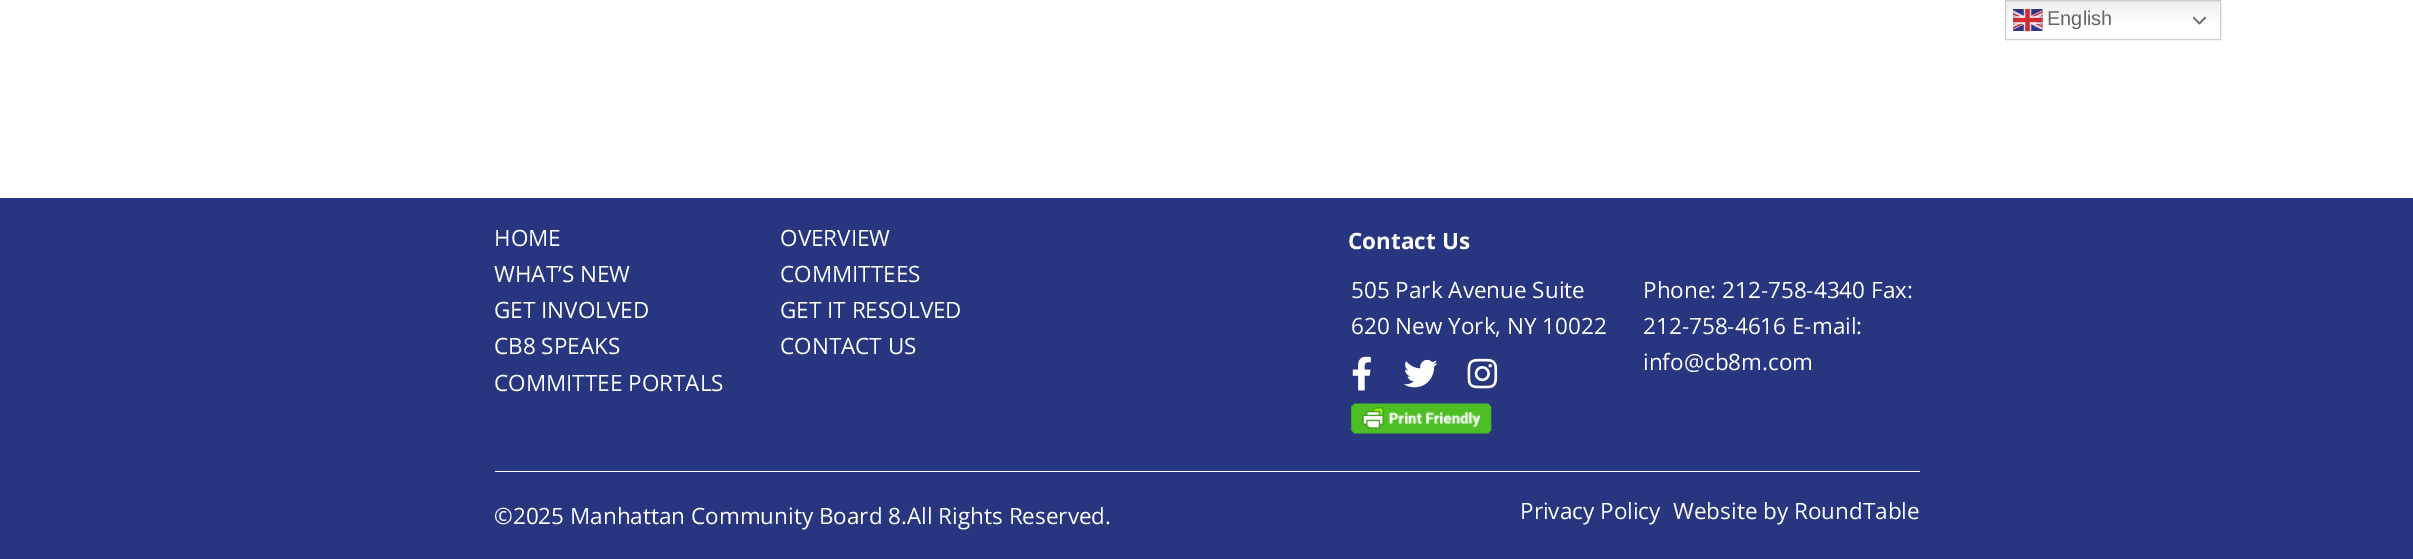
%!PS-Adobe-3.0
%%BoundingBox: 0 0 2413 559
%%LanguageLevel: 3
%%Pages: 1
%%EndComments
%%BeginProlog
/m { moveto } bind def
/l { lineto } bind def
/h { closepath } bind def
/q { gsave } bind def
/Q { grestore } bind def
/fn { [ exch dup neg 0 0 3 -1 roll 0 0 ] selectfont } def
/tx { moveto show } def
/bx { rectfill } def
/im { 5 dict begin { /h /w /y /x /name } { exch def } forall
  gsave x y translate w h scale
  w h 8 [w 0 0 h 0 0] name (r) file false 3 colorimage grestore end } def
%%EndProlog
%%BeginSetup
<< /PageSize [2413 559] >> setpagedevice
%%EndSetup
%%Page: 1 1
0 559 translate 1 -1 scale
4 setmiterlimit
1 setgray
0 0 2413 559 bx
q 2006 1 m 2220 1 l 2220 24 l 2006 24 l h clip newpath
<< /ShadingType 2 /ColorSpace /DeviceRGB /Coords [2113 0 2113 40] /Extend [true true] /Function << /FunctionType 3 /Domain [0 1] /Functions [<< /FunctionType 2 /Domain [0 1] /C0 [0.937 0.937 0.937] /C1 [1 1 1] /N 1 >> << /FunctionType 2 /Domain [0 1] /C0 [1 1 1] /C1 [1 1 1] /N 1 >>] /Bounds [0.7] /Encode [0 1 0 1] >> >> shfill Q
0.8 setgray
2005.5 0.5 215 39 rectstroke
(image0.raw) 2013 8 30 24 im
/LiberationSans-Regular 20 fn
0.4 setgray
(English) 2047 25 tx
(image1.raw) 2193 16 13 9 im
0.153 0.212 0.498 setrgbcolor
0 198 2413 361 bx
/OpenSans-Regular 22.5 fn
1 setgray
(HOME) 494 246 tx
(OVERVIEW) 780 246 tx
(WHAT’S NEW) 494 282 tx
(COMMITTEES) 780 282 tx
(GET INVOLVED) 494 318 tx
(GET IT RESOLVED) 780 318 tx
(CB8 SPEAKS) 494 354 tx
(CONTACT US) 780 354 tx
(COMMITTEE PORTALS) 494 391 tx
/OpenSans-Bold 22.5 fn
(Contact Us) 1348 249 tx
/OpenSans-Regular 22.5 fn
(505 Park Avenue Suite) 1351 298 tx
(620 New York, NY 10022) 1351 334 tx
(image2.raw) 1352 356 19 35 im
(image3.raw) 1404 359 34 29 im
(image4.raw) 1467 358 31 31 im
(image5.raw) 1351 403 141 31 im
(Phone: 212-758-4340 Fax:) 1643 298 tx
(212-758-4616 E-mail:) 1643 334 tx
(info@cb8m.com) 1643 370 tx
495 471 1425 1 bx
(©2025 Manhattan Community Board 8.All Rights Reserved.) 494 524 tx
(Privacy Policy) 1520 519 tx
(Website by RoundTable) 1673 519 tx
showpage
%%EOF
